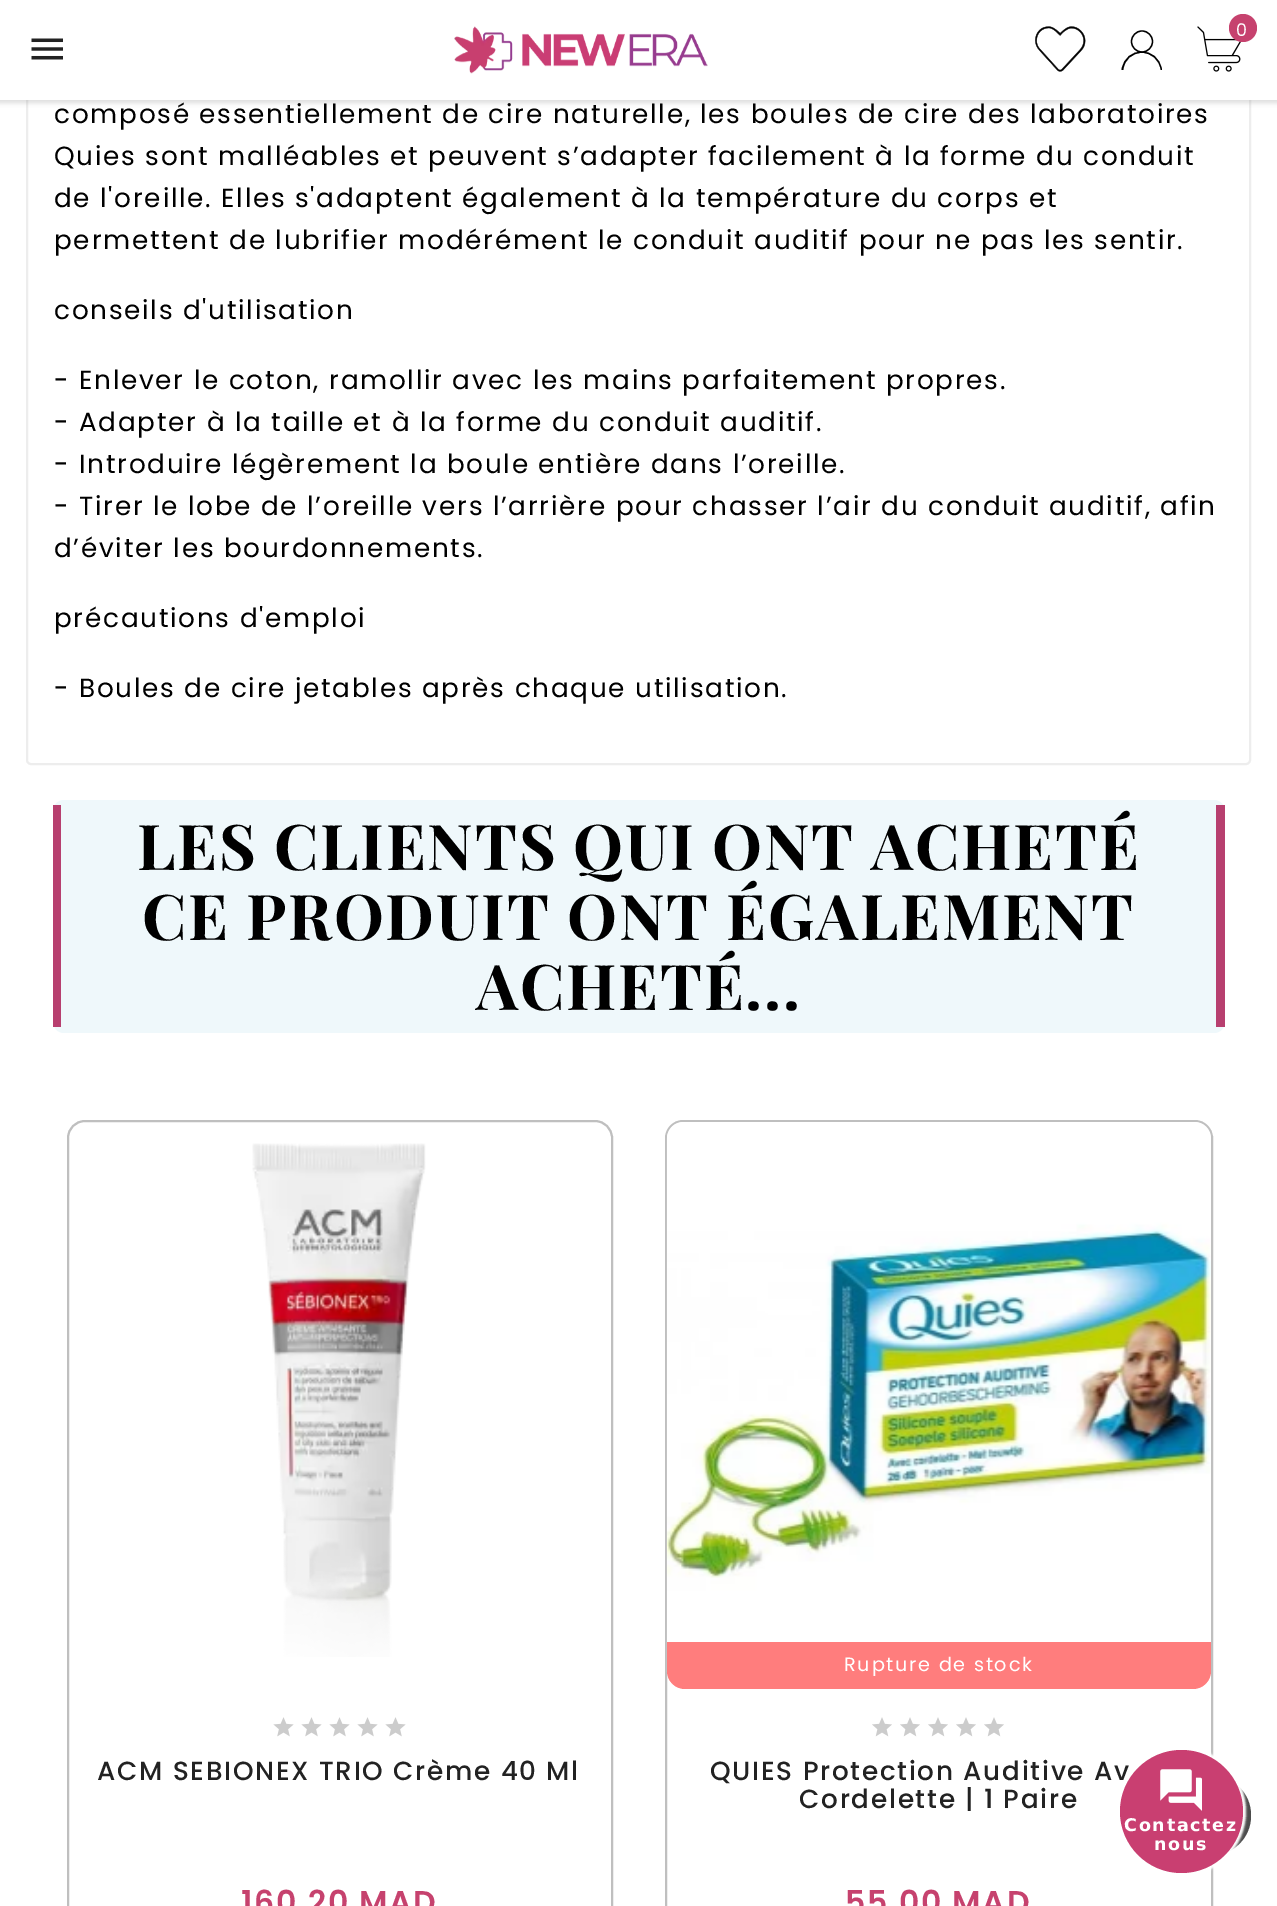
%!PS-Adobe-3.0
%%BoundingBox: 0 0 1277 1906
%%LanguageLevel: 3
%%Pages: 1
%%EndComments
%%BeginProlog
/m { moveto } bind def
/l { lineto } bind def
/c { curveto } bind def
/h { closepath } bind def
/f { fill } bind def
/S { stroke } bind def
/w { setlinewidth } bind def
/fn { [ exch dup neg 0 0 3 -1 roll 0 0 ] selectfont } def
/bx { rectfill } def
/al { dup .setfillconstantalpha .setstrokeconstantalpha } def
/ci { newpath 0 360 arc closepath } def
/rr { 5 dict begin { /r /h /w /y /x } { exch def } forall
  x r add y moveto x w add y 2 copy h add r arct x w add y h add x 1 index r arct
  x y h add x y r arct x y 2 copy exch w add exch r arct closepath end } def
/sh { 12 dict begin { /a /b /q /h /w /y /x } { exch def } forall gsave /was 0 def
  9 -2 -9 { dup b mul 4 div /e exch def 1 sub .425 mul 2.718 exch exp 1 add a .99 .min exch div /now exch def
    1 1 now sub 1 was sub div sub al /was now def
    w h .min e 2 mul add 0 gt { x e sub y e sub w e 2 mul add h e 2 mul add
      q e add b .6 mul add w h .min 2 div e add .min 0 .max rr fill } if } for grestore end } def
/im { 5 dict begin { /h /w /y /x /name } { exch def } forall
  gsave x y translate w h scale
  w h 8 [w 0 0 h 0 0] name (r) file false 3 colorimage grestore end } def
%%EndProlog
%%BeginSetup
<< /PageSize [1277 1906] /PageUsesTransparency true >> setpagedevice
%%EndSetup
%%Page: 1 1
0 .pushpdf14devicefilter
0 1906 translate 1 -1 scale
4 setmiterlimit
1 setgray
0 0 1277 1906 bx
0.929 setgray
2 w
27 -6 1223 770 4 rr S
0.502 setgray
-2 0 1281 103 0 2.5 0.27 sh
1 setgray
0 0 1277 100 bx
(image0.raw) 31 38 32 22 im
(image1.raw) 454 26 254 48 im
(image2.raw) 1035 26 51 46 im
0 setgray
0.8 w
1142 52.5 m 1151.5 52.5 1159.5 59.5 1161 69.5 c 1161.5 69.5 l 1158 46 1125.5 46 1122 69.5 c 1123 69.5 l 1124 59.5 1132 52.5 1142 52.5 c h S
1.3 w
1142 41.5 10.5 ci S
(image3.raw) 1197 26 45 46 im
0.776 0.259 0.431 setrgbcolor
1243 28 14 ci f
/Poppins-Regular 17.5 fn
1 setgray
1236 36 m 1.75 0 (0) ashow
/Poppins-Regular 26.25 fn
0 setgray
54 123 m 1.75 0 (composé essentiellement de cire naturelle, les boules de cire des laboratoires) ashow
54 165 m 1.75 0 (Quies sont malléables et peuvent s’adapter facilement à la forme du conduit) ashow
54 207 m 1.75 0 (de l'oreille. Elles s'adaptent également à la température du corps et) ashow
54 249 m 1.75 0 (permettent de lubrifier modérément le conduit auditif pour ne pas les sentir.) ashow
54 319 m 1.75 0 (conseils d'utilisation) ashow
54 389 m 1.75 0 (- Enlever le coton, ramollir avec les mains parfaitement propres.) ashow
54 431 m 1.75 0 (- Adapter à la taille et à la forme du conduit auditif.) ashow
54 473 m 1.75 0 (- Introduire légèrement la boule entière dans l’oreille.) ashow
54 515 m 1.75 0 (- Tirer le lobe de l’oreille vers l’arrière pour chasser l’air du conduit auditif, afin) ashow
54 557 m 1.75 0 (d’éviter les bourdonnements.) ashow
54 627 m 1.75 0 (précautions d'emploi) ashow
54 697 m 1.75 0 (- Boules de cire jetables après chaque utilisation.) ashow
0.937 0.973 0.984 setrgbcolor
53 800 1172 233 11 rr f
0.718 0.247 0.435 setrgbcolor
1216 805 9 222 bx
53 805 8 222 bx
/PlayfairDisplay-Bold 63 fn
0 setgray
137 870 m 1.75 0 (LES CLIENTS QUI ONT ACHETÉ) ashow
142 940 m 1.75 0 (CE PRODUIT ONT ÉGALEMENT) ashow
476 1010 m 1.75 0 (ACHETÉ...) ashow
0.749 setgray
2 w
68 1121 544 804 17 rr S
(image4.raw) 252 1143 174 514 im
(image5.raw) 273 1717 21 20 im
(image5.raw) 301 1717 21 20 im
(image5.raw) 329 1717 21 20 im
(image5.raw) 357 1717 21 20 im
(image5.raw) 385 1717 21 20 im
/Poppins-Medium 26.25 fn
0.133 setgray
97 1780 m 1.75 0 (ACM SEBIONEX TRIO Crème 40 Ml) ashow
/Poppins-SemiBold 31.5 fn
0.776 0.259 0.431 setrgbcolor
241 1913 m 1.75 0 (160,20 MAD) ashow
0.749 setgray
666 1121 546 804 17 rr S
(image6.raw) 666 1122 545 550 im
1 0.49 0.49 setrgbcolor
667 1642 m 1211 1642 l 1211 1671 l 1211 1681 1203 1689 1193 1689 c 685 1689 l 675 1689 667 1681 667 1671 c h f
/Poppins-Regular 19.25 fn
1 setgray
844 1671 m 1.75 0 (Rupture de stock) ashow
(image7.raw) 872 1717 20 20 im
(image7.raw) 900 1717 20 20 im
(image7.raw) 928 1717 20 20 im
(image7.raw) 956 1717 20 20 im
(image7.raw) 984 1717 20 20 im
/Poppins-Medium 26.25 fn
0.133 setgray
710 1780 m 1.75 0 (QUIES Protection Auditive Av) ashow
799 1808 m 1.75 0 (Cordelette | 1 Paire) ashow
/Poppins-SemiBold 31.5 fn
0.776 0.259 0.431 setrgbcolor
845 1913 m 1.75 0 (55,00 MAD) ashow
0.298 setgray
1173 1776 78 79 39 rr f
1 setgray
1117 1747 129 129 64.5 1 1 sh
0.788 0.247 0.443 setrgbcolor
1181.5 1811.5 61.5 ci f
(image8.raw) 1160 1769 42 42 im
/DejaVuSans-Bold 17.5 fn
1 setgray
1124 1831 m 1.75 0 (Contactez) ashow
1154 1850 m 1.75 0 (nous) ashow
.poppdf14devicefilter showpage
%%EOF
